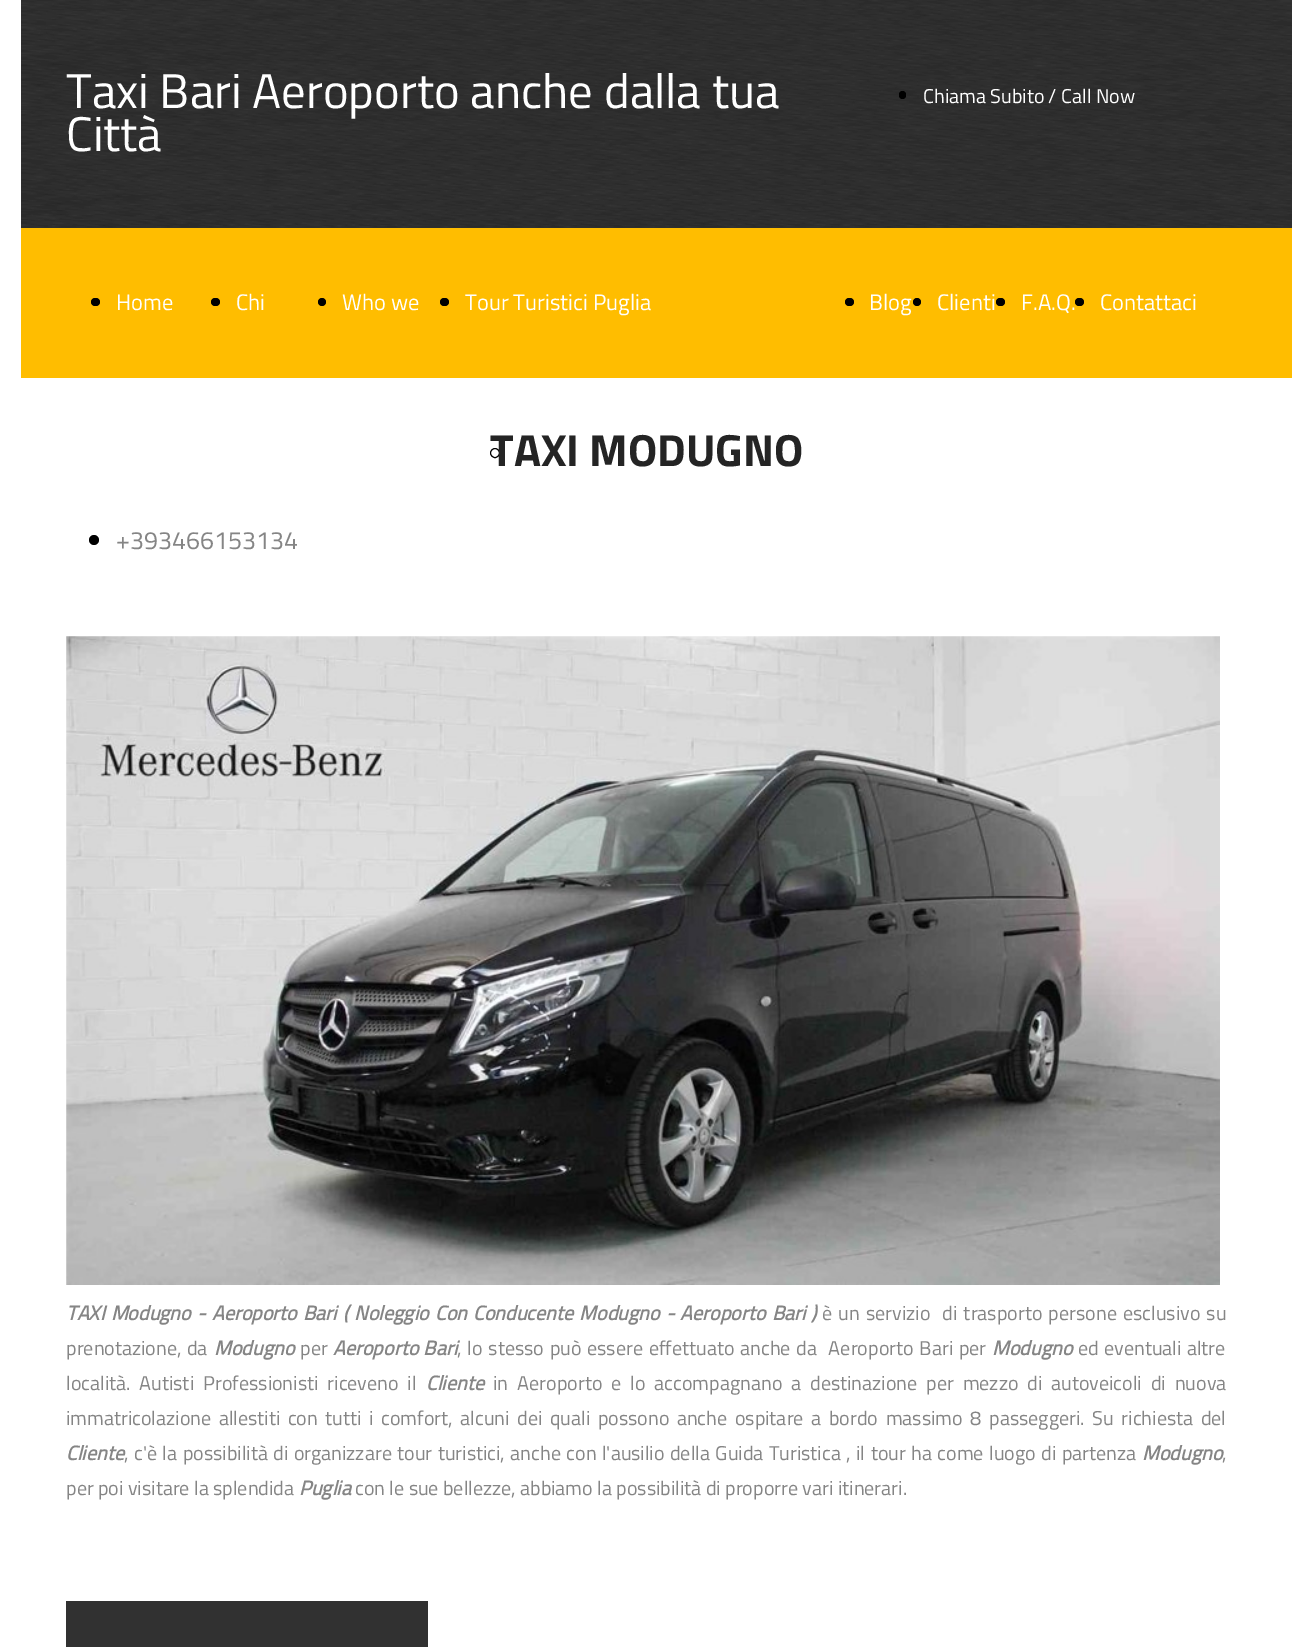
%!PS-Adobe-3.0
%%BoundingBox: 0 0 1292 1647
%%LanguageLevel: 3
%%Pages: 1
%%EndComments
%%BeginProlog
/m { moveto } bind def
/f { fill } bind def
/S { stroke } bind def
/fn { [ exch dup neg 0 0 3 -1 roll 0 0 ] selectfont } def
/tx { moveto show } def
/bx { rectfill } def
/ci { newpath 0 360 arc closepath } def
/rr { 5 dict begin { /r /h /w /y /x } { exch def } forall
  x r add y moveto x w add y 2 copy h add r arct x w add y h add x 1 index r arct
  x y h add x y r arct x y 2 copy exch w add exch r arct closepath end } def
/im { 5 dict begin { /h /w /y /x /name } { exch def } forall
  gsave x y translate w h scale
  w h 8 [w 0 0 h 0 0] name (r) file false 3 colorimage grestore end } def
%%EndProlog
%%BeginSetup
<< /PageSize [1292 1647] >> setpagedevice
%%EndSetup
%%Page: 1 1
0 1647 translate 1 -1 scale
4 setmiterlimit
1 setgray
0 0 1292 1647 bx
0.192 setgray
21 0 1271 228 bx
(image0.raw) 21 0 1271 228 im
/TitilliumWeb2-Regular 48.75 fn
1 setgray
(Taxi Bari Aeroporto anche dalla tua) 66 108 tx
(Città) 66 151 tx
0 setgray
899 91 7 8 3.5 rr f
/TitilliumWeb-Regular 20 fn
1 setgray
(Chiama Subito / Call Now) 923 103 tx
1 0.741 0 setrgbcolor
21 228 1271 150 bx
0 setgray
91 298 9 8 4 rr f
/TitilliumWeb2-Regular 22.5 fn
1 setgray
(Home) 116 310 tx
0 setgray
211 298 9 8 4 rr f
1 setgray
(Chi) 236 310 tx
0 setgray
322 302 4 ci f
1 setgray
(Who we) 342 310 tx
0 setgray
440 298 9 8 4 rr f
1 setgray
(Tour Turistici Puglia) 465 310 tx
0 setgray
495 453 4.5 ci S
845 298 9 8 4 rr f
1 setgray
(Blog) 869 310 tx
0 setgray
917 302 4 ci f
1 setgray
(Clienti) 937 310 tx
0 setgray
996 298 9 8 4 rr f
1 setgray
(F.A.Q.) 1021 310 tx
0 setgray
1075 298 9 8 4 rr f
1 setgray
(Contattaci) 1100 310 tx
/TitilliumWeb-Bold 45 fn
0.141 setgray
(TAXI MODUGNO) 490 466 tx
0 setgray
94 540 5 ci f
/TitilliumWeb-Regular 25 fn
0.522 setgray
(+393466153134) 116 549 tx
(image1.raw) 66 636 1154 649 im
/TitilliumWeb-BoldItalic 20 fn
66 1320 m 1.75 0 32 (TAXI Modugno - Aeroporto Bari \( Noleggio Con Conducente Modugno - Aeroporto Bari \)) widthshow
/TitilliumWeb2-Regular 20 fn
822 1320 m 1.75 0 32 (è un servizio  di trasporto persone esclusivo su) widthshow
66 1355 m 1 0 32 (prenotazione, da) widthshow
/TitilliumWeb-BoldItalic 20 fn
(Modugno) 214 1355 tx
/TitilliumWeb2-Regular 20 fn
(per) 300 1355 tx
/TitilliumWeb-BoldItalic 20 fn
333 1355 m 1 0 32 (Aeroporto Bari) widthshow
/TitilliumWeb2-Regular 20 fn
457 1355 m 1.4 0 32 (, lo stesso può essere effettuato anche da  Aeroporto Bari per) widthshow
/TitilliumWeb-BoldItalic 20 fn
(Modugno) 992 1355 tx
/TitilliumWeb2-Regular 20 fn
1078 1355 m 1 0 32 (ed eventuali altre) widthshow
66 1390 m 4.6 0 32 (località. Autisti Professionisti riceveno il) widthshow
/TitilliumWeb-BoldItalic 20 fn
(Cliente) 426 1390 tx
/TitilliumWeb2-Regular 20 fn
493 1390 m 4.6 0 32 (in Aeroporto e lo accompagnano a destinazione per mezzo di autoveicoli di nuova) widthshow
66 1425 m 3.25 0 32 (immatricolazione allestiti con tutti i comfort, alcuni dei quali possono anche ospitare a bordo massimo 8 passeggeri. Su richiesta del) widthshow
/TitilliumWeb-BoldItalic 20 fn
(Cliente) 66 1460 tx
/TitilliumWeb2-Regular 20 fn
124 1460 m 1.1 0 32 (, c'è la possibilità di organizzare tour turistici, anche con l'ausilio della Guida Turistica , il tour ha come luogo di partenza) widthshow
/TitilliumWeb-BoldItalic 20 fn
(Modugno) 1142 1460 tx
/TitilliumWeb2-Regular 20 fn
(,) 1222 1460 tx
(per poi visitare la splendida) 66 1495 tx
/TitilliumWeb-BoldItalic 20 fn
(Puglia) 299 1495 tx
/TitilliumWeb2-Regular 20 fn
(con le sue bellezze, abbiamo la possibilità di proporre vari itinerari.) 355 1495 tx
0.192 setgray
66 1601 362 46 bx
showpage
%%EOF
